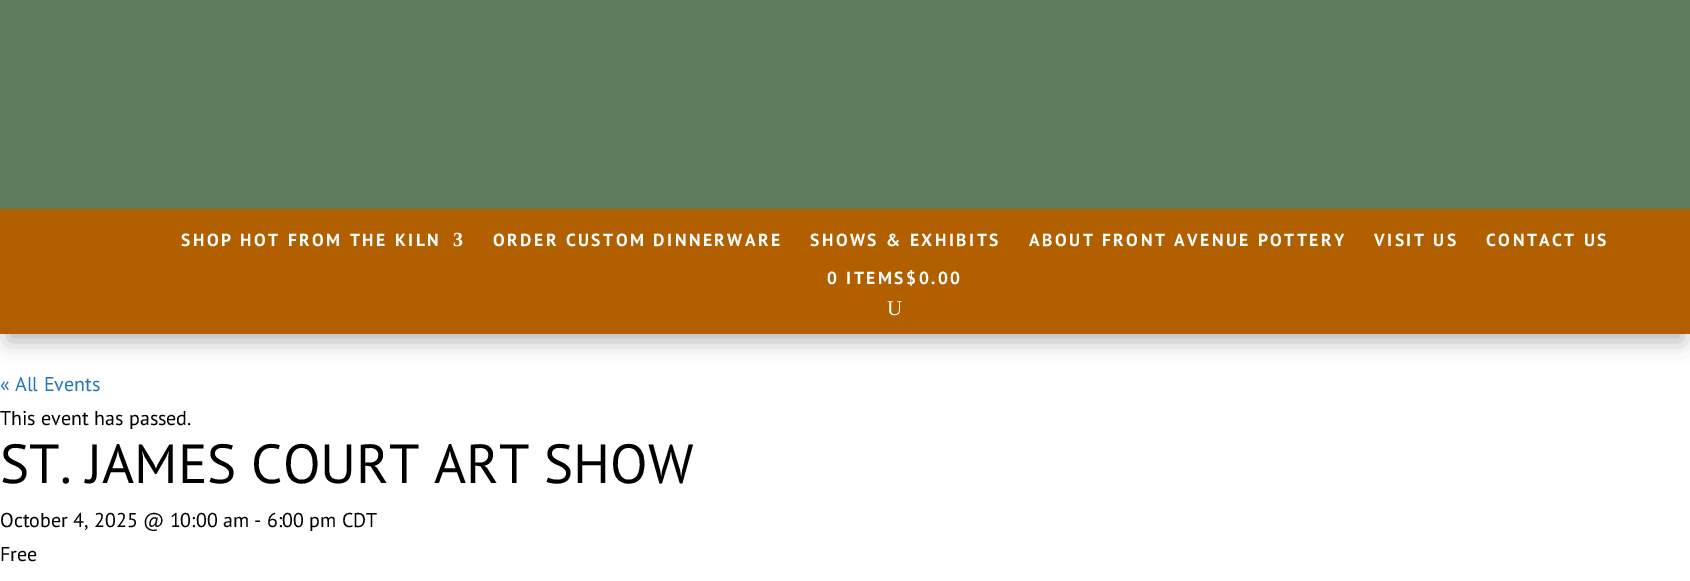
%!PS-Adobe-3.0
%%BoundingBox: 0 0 1690 581
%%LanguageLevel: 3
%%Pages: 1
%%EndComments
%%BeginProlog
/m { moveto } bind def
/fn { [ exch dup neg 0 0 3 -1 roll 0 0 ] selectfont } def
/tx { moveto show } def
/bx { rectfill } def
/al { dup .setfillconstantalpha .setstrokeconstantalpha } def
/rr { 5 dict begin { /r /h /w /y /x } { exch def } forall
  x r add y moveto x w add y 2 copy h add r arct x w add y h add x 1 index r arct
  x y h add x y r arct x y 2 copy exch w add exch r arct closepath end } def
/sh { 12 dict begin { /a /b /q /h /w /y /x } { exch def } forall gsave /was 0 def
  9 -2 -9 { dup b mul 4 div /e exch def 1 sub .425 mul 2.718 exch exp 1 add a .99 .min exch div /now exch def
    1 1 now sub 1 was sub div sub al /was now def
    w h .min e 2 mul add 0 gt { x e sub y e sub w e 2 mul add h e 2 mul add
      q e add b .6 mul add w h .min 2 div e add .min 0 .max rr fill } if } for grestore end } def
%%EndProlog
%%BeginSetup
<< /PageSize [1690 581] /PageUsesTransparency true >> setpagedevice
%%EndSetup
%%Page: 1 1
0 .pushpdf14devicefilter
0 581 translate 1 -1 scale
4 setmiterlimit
1 setgray
0 0 1690 581 bx
0.373 0.486 0.365 setrgbcolor
0 0 1690 209 bx
0 setgray
8 231 1675 110 0 11 0.3 sh
0.698 0.373 0 setrgbcolor
0 209 1690 125 bx
/PTSans-Bold 17.5 fn
1 setgray
181 246 m 2.5 0 (SHOP HOT FROM THE KILN) ashow
/LiberationSerif-Bold 20 fn
453 246 m 2.5 0 (3) ashow
/PTSans-Bold 17.5 fn
493 246 m 2.5 0 (ORDER CUSTOM DINNERWARE) ashow
810 246 m 2.5 0 (SHOWS & EXHIBITS) ashow
1029 246 m 2.5 0 (ABOUT FRONT AVENUE POTTERY) ashow
1374 246 m 2.5 0 (VISIT US) ashow
1486 246 m 2.5 0 (CONTACT US) ashow
827 284 m 2.5 0 (0 ITEMS$0.00) ashow
/LiberationSerif-Regular 21 fn
(U) 887 315 tx
/PTSans-Regular 20 fn
0.137 0.459 0.737 setrgbcolor
(« All Events) 0 391 tx
0 setgray
(This event has passed.) 0 425 tx
/PTSans-Regular 55 fn
(ST. JAMES COURT ART SHOW) 0 483 tx
/PTSans-Regular 20 fn
(October 4, 2025 @ 10:00 am - 6:00 pm CDT) 0 527 tx
(Free) 0 561 tx
.poppdf14devicefilter showpage
%%EOF
